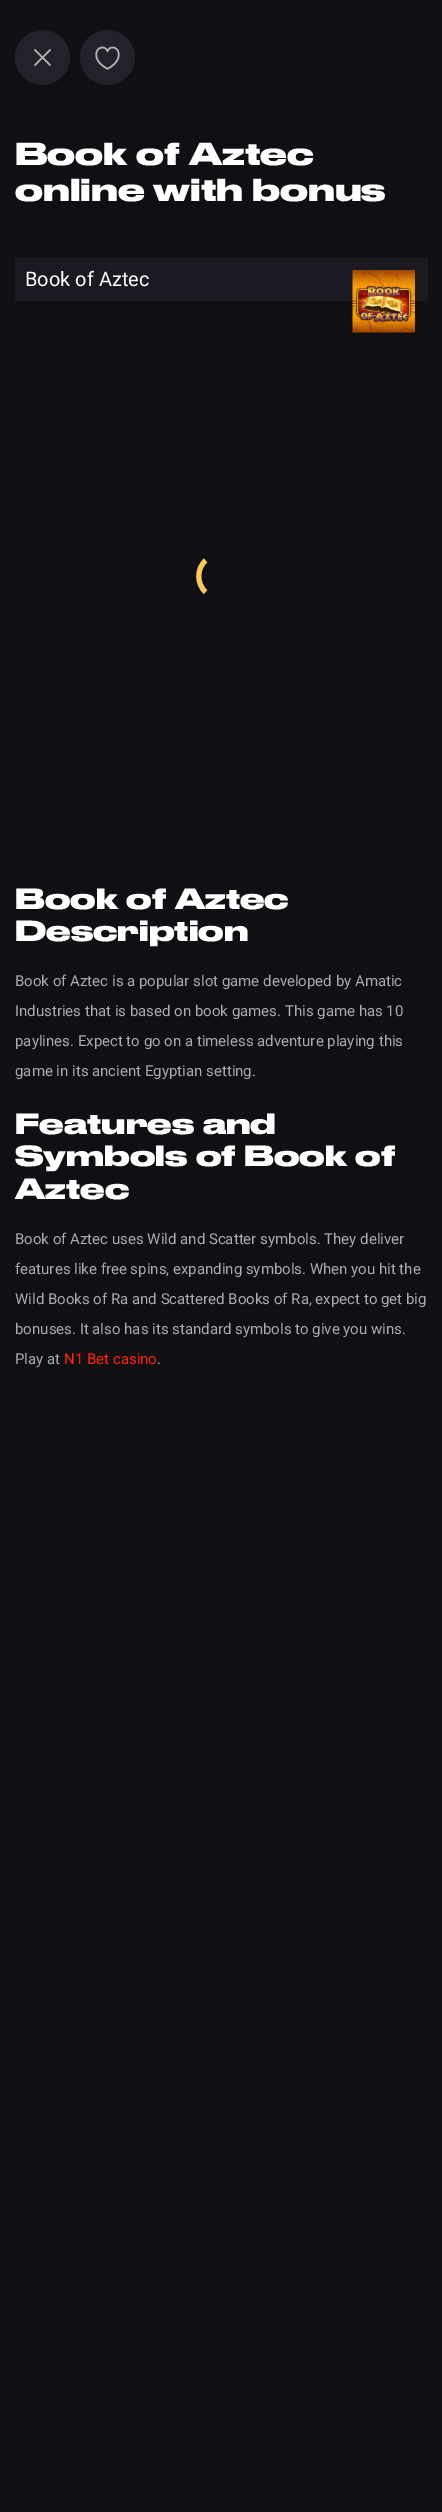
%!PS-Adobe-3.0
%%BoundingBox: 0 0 442 2512
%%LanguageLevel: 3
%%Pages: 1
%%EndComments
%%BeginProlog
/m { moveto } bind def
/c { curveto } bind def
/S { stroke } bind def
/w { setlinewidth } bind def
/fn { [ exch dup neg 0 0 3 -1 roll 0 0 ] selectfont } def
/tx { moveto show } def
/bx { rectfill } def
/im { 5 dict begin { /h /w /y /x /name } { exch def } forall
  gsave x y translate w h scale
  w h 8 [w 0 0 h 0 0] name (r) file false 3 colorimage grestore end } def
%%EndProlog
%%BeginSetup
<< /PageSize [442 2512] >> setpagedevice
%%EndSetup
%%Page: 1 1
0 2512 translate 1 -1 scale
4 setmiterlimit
0.059 0.059 0.078 setrgbcolor
0 0 442 2512 bx
(image0.raw) 15 30 55 55 im
(image1.raw) 80 30 55 55 im
/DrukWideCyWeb-Bold 30 fn
1 setgray
(Book of Aztec) 15 165 tx
(online with bonus) 15 201 tx
0.102 0.102 0.133 setrgbcolor
15 258 413 43 bx
/Roboto-Regular 20 fn
1 setgray
(Book of Aztec) 25 286 tx
0.98 0.784 0.361 setrgbcolor
5 w
205.5 592 m 196.5 583.5 196.5 569 205.5 560.5 c S
(image2.raw) 352 270 63 63 im
/DrukWideCyWeb-Bold 27.5 fn
1 setgray
(Book of Aztec) 15 909 tx
(Description) 15 941 tx
/Roboto-Regular 15 fn
0.671 0.671 0.678 setrgbcolor
(Book of Aztec is a popular slot game developed by Amatic) 15 986 tx
(Industries that is based on book games. This game has 10) 15 1016 tx
(paylines. Expect to go on a timeless adventure playing this) 15 1046 tx
(game in its ancient Egyptian setting.) 15 1076 tx
/DrukWideCyWeb-Bold 27.5 fn
1 setgray
(Features and) 15 1134 tx
(Symbols of Book of) 15 1166 tx
(Aztec) 15 1199 tx
/Roboto-Regular 15 fn
0.671 0.671 0.678 setrgbcolor
(Book of Aztec uses Wild and Scatter symbols. They deliver) 15 1244 tx
(features like free spins, expanding symbols. When you hit the) 15 1274 tx
(Wild Books of Ra and Scattered Books of Ra, expect to get big) 15 1304 tx
(bonuses. It also has its standard symbols to give you wins.) 15 1334 tx
(Play at) 15 1364 tx
1 0.137 0.039 setrgbcolor
(N1 Bet casino) 64 1364 tx
0.671 0.671 0.678 setrgbcolor
(.) 157 1364 tx
showpage
%%EOF
